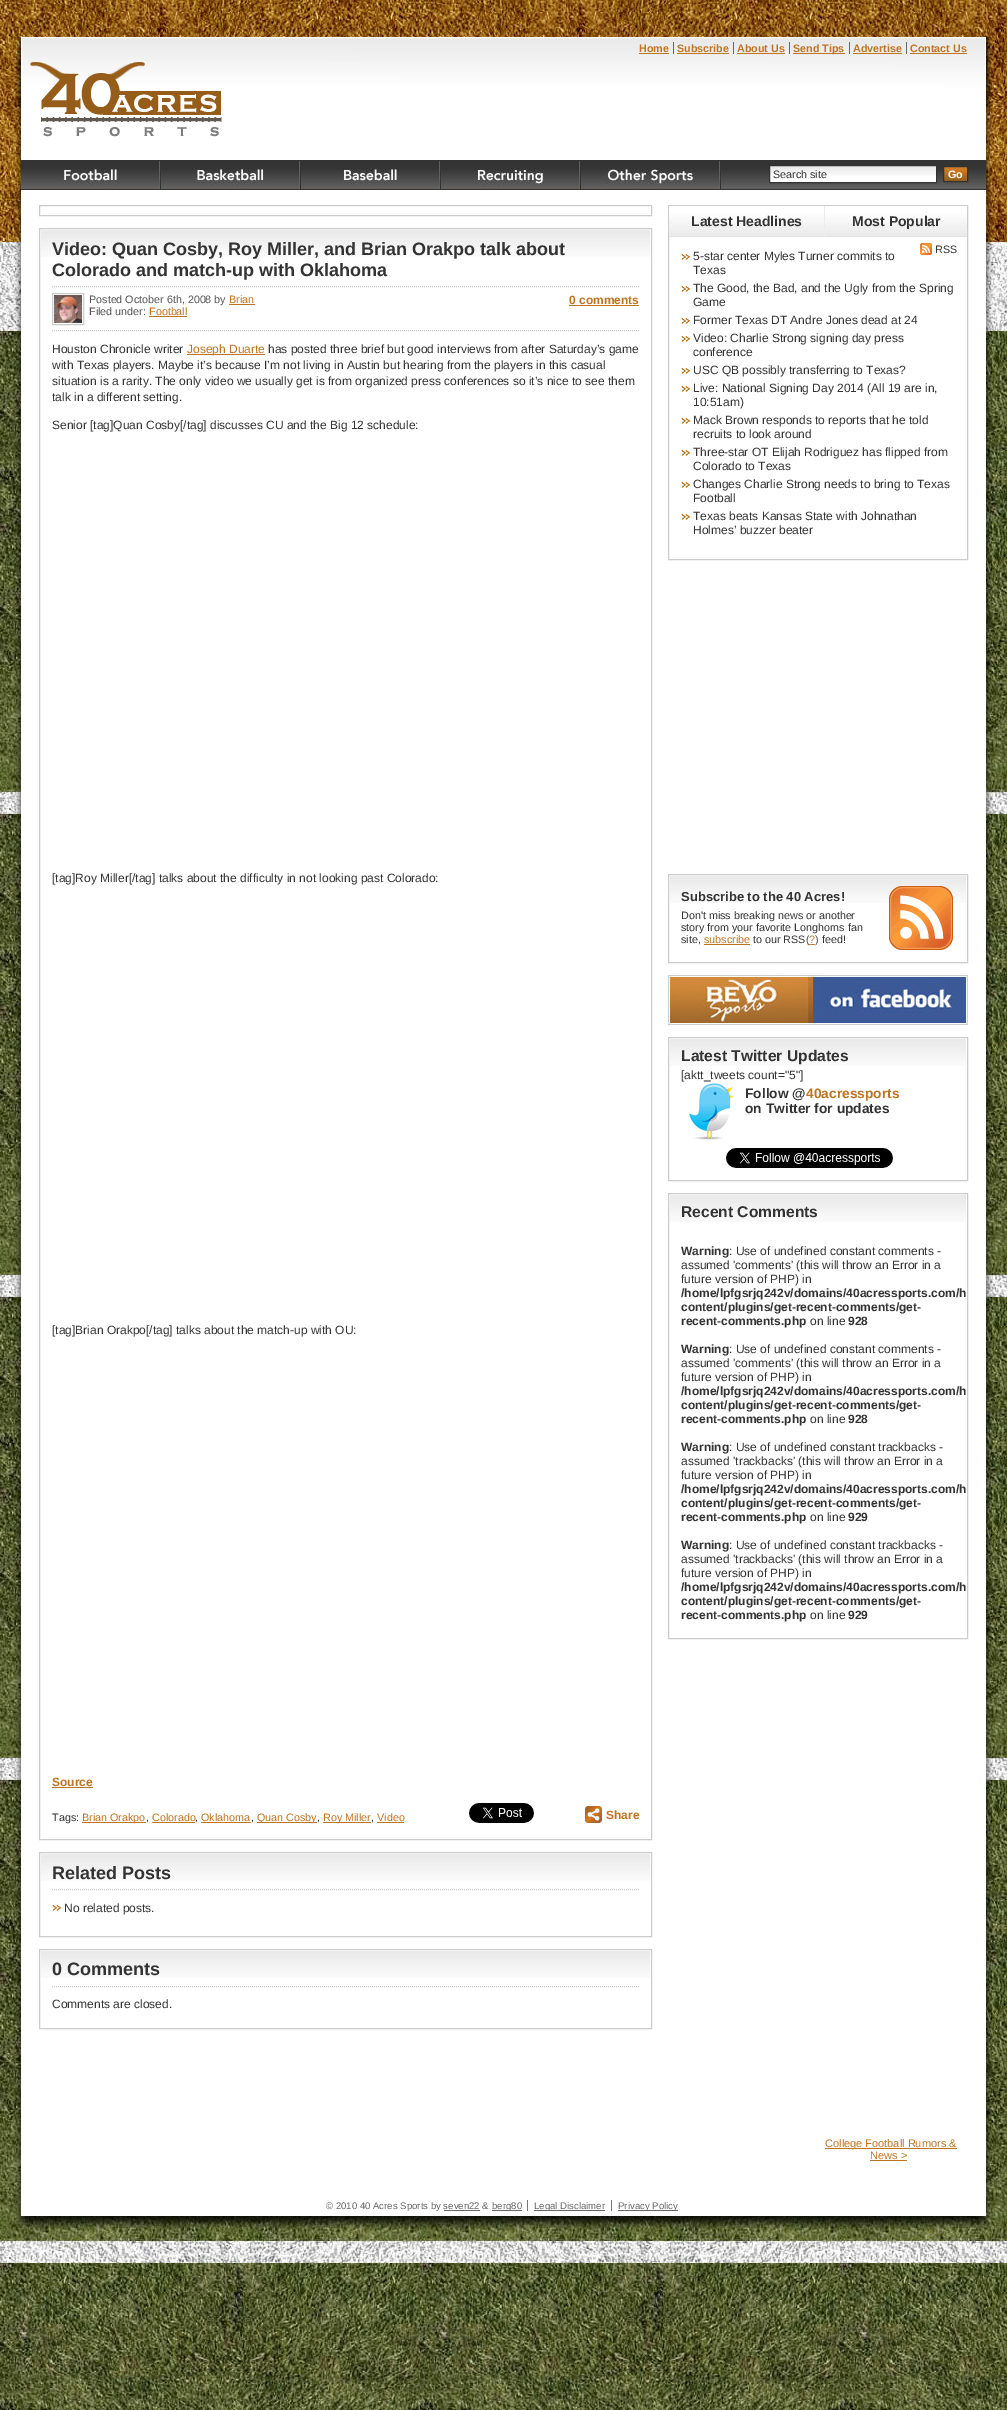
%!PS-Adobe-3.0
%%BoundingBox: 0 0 1007 2410
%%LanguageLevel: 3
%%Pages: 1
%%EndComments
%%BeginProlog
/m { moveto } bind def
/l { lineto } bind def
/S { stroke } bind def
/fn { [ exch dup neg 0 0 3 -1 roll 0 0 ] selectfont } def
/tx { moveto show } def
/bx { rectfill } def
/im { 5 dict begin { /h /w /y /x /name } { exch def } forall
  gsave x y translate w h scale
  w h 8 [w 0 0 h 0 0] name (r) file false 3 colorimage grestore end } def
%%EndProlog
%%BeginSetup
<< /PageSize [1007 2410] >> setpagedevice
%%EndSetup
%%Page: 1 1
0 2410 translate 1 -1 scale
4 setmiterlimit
1 setgray
0 0 1007 2410 bx
(image0.raw) 0 331 1007 2079 im
(image1.raw) 0 0 1007 331 im
(image2.raw) 14 37 979 2178 im
(image3.raw) 14 38 979 68 im
/LiberationSans-Bold 10.75 fn
0.749 0.455 0.129 setrgbcolor
(Home) 639 52 tx
639 53 30 1 bx
0.4 setgray
673 42 1 12 bx
0.749 0.455 0.129 setrgbcolor
(Subscribe) 677 52 tx
677 53 52 1 bx
0.4 setgray
733 42 1 12 bx
0.749 0.455 0.129 setrgbcolor
(About Us) 737 52 tx
737 53 48 1 bx
0.4 setgray
789 42 1 12 bx
0.749 0.455 0.129 setrgbcolor
793 53 52 1 bx
(Send Tips) 793 52 tx
0.4 setgray
849 42 1 12 bx
0.749 0.455 0.129 setrgbcolor
(Advertise) 853 52 tx
853 53 49 1 bx
0.4 setgray
906 42 1 12 bx
0.749 0.455 0.129 setrgbcolor
(Contact Us) 910 52 tx
910 53 57 1 bx
(image4.raw) 29 61 193 76 im
(image5.raw) 721 161 265 28 im
0.2 setgray
21 160 965 1 bx
21 189 965 1 bx
(image6.raw) 21 161 140 28 im
(image7.raw) 161 161 140 28 im
(image8.raw) 301 161 140 28 im
(image9.raw) 441 161 140 28 im
(image10.raw) 581 161 140 28 im
1 setgray
770 176 166 6 bx
(image11.raw) 770 166 166 10 im
0.2 setgray
769.5 165.5 167 17 rectstroke
/LiberationSans-Regular 10.75 fn
(Search site) 773 178 tx
0.592 0.365 0.102 setrgbcolor
944 180 23 1 bx
(image12.raw) 944 167 23 13 im
0.2 setgray
943.5 166.5 24 15 rectstroke
/LiberationSans-Bold 10.75 fn
1 setgray
(Go) 948 178 tx
0.8 setgray
39.5 205.5 612 10 rectstroke
39.5 228.5 612 1611 rectstroke
(image13.raw) 41 230 609 27 im
/LiberationSans-Bold 18 fn
0.2 setgray
(Video: Quan Cosby, Roy Miller, and Brian Orakpo talk about) 52 255 tx
(Colorado and match-up with Oklahoma) 52 276 tx
0.8 setgray
[1 1] 0 setdash
52 286.5 m 639 286.5 l S
[] 0 setdash
52.5 293.5 31 31 rectstroke
(image14.raw) 54 295 28 28 im
/LiberationSans-Regular 10.75 fn
0.333 setgray
(Posted October 6th, 2008 by) 89 303 tx
0.749 0.455 0.129 setrgbcolor
(Brian) 229 303 tx
229 304 26 1 bx
0.333 setgray
(Filed under:) 89 315 tx
0.749 0.455 0.129 setrgbcolor
(Football) 149 315 tx
149 316 38 1 bx
/LiberationSans-Bold 12 fn
(0 comments) 569 304 tx
569 305 70 1 bx
0.8 setgray
[1 1] 0 setdash
52 330.5 m 639 330.5 l S
/LiberationSans-Regular 12 fn
0.2 setgray
(Houston Chronicle writer) 52 353 tx
0.749 0.455 0.129 setrgbcolor
187 354 78 1 bx
(Joseph Duarte) 187 353 tx
0.2 setgray
(has posted three brief but good interviews from after Saturday’s game) 268 353 tx
(with Texas players. Maybe it’s because I’m not living in Austin but hearing from the players in this casual) 52 369 tx
(situation is a rarity. The only video we usually get is from organized press conferences so it’s nice to see them) 52 385 tx
(talk in a different setting.) 52 401 tx
(Senior [tag]Quan Cosby[/tag] discusses CU and the Big 12 schedule:) 52 429 tx
([tag]Roy Miller[/tag] talks about the difficulty in not looking past Colorado:) 52 882 tx
([tag]Brian Orakpo[/tag] talks about the match-up with OU:) 52 1334 tx
/LiberationSans-Bold 12 fn
0.749 0.455 0.129 setrgbcolor
(Source) 52 1786 tx
52 1787 41 1 bx
/LiberationSans-Regular 10.75 fn
0.2 setgray
(Tags:) 52 1821 tx
0.749 0.455 0.129 setrgbcolor
82 1822 64 1 bx
(Brian Orakpo) 82 1821 tx
0.2 setgray
(,) 146 1821 tx
0.749 0.455 0.129 setrgbcolor
(Colorado) 152 1821 tx
152 1822 43 1 bx
0.2 setgray
(,) 195 1821 tx
0.749 0.455 0.129 setrgbcolor
(Oklahoma) 201 1821 tx
201 1822 50 1 bx
0.2 setgray
(,) 251 1821 tx
0.749 0.455 0.129 setrgbcolor
257 1822 60 1 bx
(Quan Cosby) 257 1821 tx
0.2 setgray
(,) 317 1821 tx
0.749 0.455 0.129 setrgbcolor
323 1822 48 1 bx
(Roy Miller) 323 1821 tx
0.2 setgray
(,) 371 1821 tx
0.749 0.455 0.129 setrgbcolor
(Video) 377 1821 tx
377 1822 27 1 bx
(image15.raw) 469 1803 65 20 im
(image16.raw) 585 1806 17 17 im
/LiberationSans-Bold 12 fn
(Share) 606 1819 tx
0.8 setgray
[] 0 setdash
39.5 1852.5 612 84 rectstroke
(image13.raw) 41 1854 609 27 im
/LiberationSans-Bold 18 fn
0.2 setgray
(Related Posts) 52 1879 tx
0.8 setgray
[1 1] 0 setdash
52 1889.5 m 639 1889.5 l S
(image17.raw) 52 1905 9 6 im
/LiberationSans-Regular 12 fn
0.2 setgray
(No related posts.) 64 1912 tx
0.8 setgray
[] 0 setdash
39.5 1949.5 612 79 rectstroke
(image13.raw) 41 1951 609 27 im
/LiberationSans-Bold 18 fn
0.2 setgray
(0 Comments) 52 1975 tx
0.8 setgray
[1 1] 0 setdash
52 1986.5 m 639 1986.5 l S
/LiberationSans-Regular 12 fn
0.2 setgray
(Comments are closed.) 52 2008 tx
0.8 setgray
[] 0 setdash
668.5 205.5 299 354 rectstroke
(image18.raw) 669 206 155 30 im
0.882 setgray
669 236 298 1 bx
/LiberationSans-Bold 14 fn
0.2 setgray
(Latest Headlines) 691 226 tx
(image19.raw) 825 206 142 30 im
0.925 setgray
824 206 1 31 bx
0.2 setgray
(Most Popular) 852 226 tx
(image20.raw) 920 243 12 12 im
/LiberationSans-Regular 10.75 fn
(RSS) 935 253 tx
(image17.raw) 681 254 9 6 im
/LiberationSans-Regular 12 fn
(5-star center Myles Turner commits to) 693 260 tx
(Texas) 693 274 tx
(image17.raw) 681 286 9 6 im
(The Good, the Bad, and the Ugly from the Spring) 693 292 tx
(Game) 693 306 tx
(image17.raw) 681 318 9 6 im
(Former Texas DT Andre Jones dead at 24) 693 324 tx
(image17.raw) 681 336 9 6 im
(Video: Charlie Strong signing day press) 693 342 tx
(conference) 693 356 tx
(image17.raw) 681 368 9 6 im
(USC QB possibly transferring to Texas?) 693 374 tx
(image17.raw) 681 386 9 6 im
(Live: National Signing Day 2014 \(All 19 are in,) 693 392 tx
(10:51am\)) 693 406 tx
(image17.raw) 681 418 9 6 im
(Mack Brown responds to reports that he told) 693 424 tx
(recruits to look around) 693 438 tx
(image17.raw) 681 450 9 6 im
(Three-star OT Elijah Rodriguez has flipped from) 693 456 tx
(Colorado to Texas) 693 470 tx
(image17.raw) 681 482 9 6 im
(Changes Charlie Strong needs to bring to Texas) 693 488 tx
(Football) 693 502 tx
(image17.raw) 681 514 9 6 im
(Texas beats Kansas State with Johnathan) 693 520 tx
(Holmes’ buzzer beater) 693 534 tx
0.8 setgray
668.5 874.5 299 88 rectstroke
(image21.raw) 670 876 296 27 im
/LiberationSans-Bold 13 fn
0.2 setgray
(Subscribe to the 40 Acres!) 681 901 tx
/LiberationSans-Regular 10.75 fn
(Don't miss breaking news or another) 681 919 tx
(story from your favorite Longhorns fan) 681 931 tx
(site,) 681 943 tx
0.749 0.455 0.129 setrgbcolor
(subscribe) 704 943 tx
704 944 46 1 bx
0.2 setgray
(to our RSS) 753 943 tx
0.278 setgray
(\() 806 943 tx
0.773 0.51 0.216 setrgbcolor
809 944 6 1 bx
(?) 809 943 tx
0.278 setgray
(\)) 815 943 tx
0.2 setgray
(feed!) 822 943 tx
(image22.raw) 889 886 64 64 im
(image23.raw) 668 975 300 50 im
0.8 setgray
668.5 1037.5 299 143 rectstroke
(image21.raw) 670 1039 296 27 im
/LiberationSans-Bold 15.6 fn
0.2 setgray
(Latest Twitter Updates) 681 1061 tx
/LiberationSans-Regular 12 fn
([aktt_tweets count="5"]) 681 1079 tx
(image24.raw) 689 1083 45 57 im
/LiberationSans-Bold 13.75 fn
(Follow @) 745 1098 tx
0.749 0.455 0.129 setrgbcolor
(40acressports) 806 1098 tx
0.2 setgray
(on Twitter for updates) 745 1113 tx
(image25.raw) 726 1148 167 20 im
0.8 setgray
668.5 1193.5 299 445 rectstroke
(image21.raw) 670 1195 296 27 im
/LiberationSans-Bold 15.6 fn
0.2 setgray
(Recent Comments) 681 1217 tx
/LiberationSans-Bold 12 fn
(Warning) 681 1255 tx
/LiberationSans-Regular 12 fn
(: Use of undefined constant comments -) 729 1255 tx
(assumed 'comments' \(this will throw an Error in a) 681 1269 tx
(future version of PHP\) in) 681 1283 tx
/LiberationSans-Bold 12 fn
(/home/lpfgsrjq242v/domains/40acressports.com/h) 681 1297 tx
(content/plugins/get-recent-comments/get-) 681 1311 tx
(recent-comments.php) 681 1325 tx
/LiberationSans-Regular 12 fn
(on line) 810 1325 tx
/LiberationSans-Bold 12 fn
(928) 848 1325 tx
(Warning) 681 1353 tx
/LiberationSans-Regular 12 fn
(: Use of undefined constant comments -) 729 1353 tx
(assumed 'comments' \(this will throw an Error in a) 681 1367 tx
(future version of PHP\) in) 681 1381 tx
/LiberationSans-Bold 12 fn
(/home/lpfgsrjq242v/domains/40acressports.com/h) 681 1395 tx
(content/plugins/get-recent-comments/get-) 681 1409 tx
(recent-comments.php) 681 1423 tx
/LiberationSans-Regular 12 fn
(on line) 810 1423 tx
/LiberationSans-Bold 12 fn
(928) 848 1423 tx
(Warning) 681 1451 tx
/LiberationSans-Regular 12 fn
(: Use of undefined constant trackbacks -) 729 1451 tx
(assumed 'trackbacks' \(this will throw an Error in a) 681 1465 tx
(future version of PHP\) in) 681 1479 tx
/LiberationSans-Bold 12 fn
(/home/lpfgsrjq242v/domains/40acressports.com/h) 681 1493 tx
(content/plugins/get-recent-comments/get-) 681 1507 tx
(recent-comments.php) 681 1521 tx
/LiberationSans-Regular 12 fn
(on line) 810 1521 tx
/LiberationSans-Bold 12 fn
(929) 848 1521 tx
(Warning) 681 1549 tx
/LiberationSans-Regular 12 fn
(: Use of undefined constant trackbacks -) 729 1549 tx
(assumed 'trackbacks' \(this will throw an Error in a) 681 1563 tx
(future version of PHP\) in) 681 1577 tx
/LiberationSans-Bold 12 fn
(/home/lpfgsrjq242v/domains/40acressports.com/h) 681 1591 tx
(content/plugins/get-recent-comments/get-) 681 1605 tx
(recent-comments.php) 681 1619 tx
/LiberationSans-Regular 12 fn
(on line) 810 1619 tx
/LiberationSans-Bold 12 fn
(929) 848 1619 tx
0.749 0.455 0.129 setrgbcolor
825 2148 132 1 bx
/LiberationSans-Regular 11 fn
(College Football Rumors &) 825 2147 tx
(News >) 870 2159 tx
870 2160 37 1 bx
/LiberationSans-Regular 9.6 fn
0.4 setgray
(© 2010 40 Acres Sports by seven22 &) 326 2209 tx
444 2210 36 1 bx
492 2210 30 1 bx
(berg80) 492 2209 tx
534 2210 71 1 bx
(Legal Disclaimer) 534 2209 tx
0.467 setgray
527 2200 1 11 bx
0.4 setgray
618 2210 60 1 bx
(Privacy Policy) 618 2209 tx
0.467 setgray
611 2200 1 11 bx
(image26.raw) 15 2215 977 15 im
showpage
%%EOF
